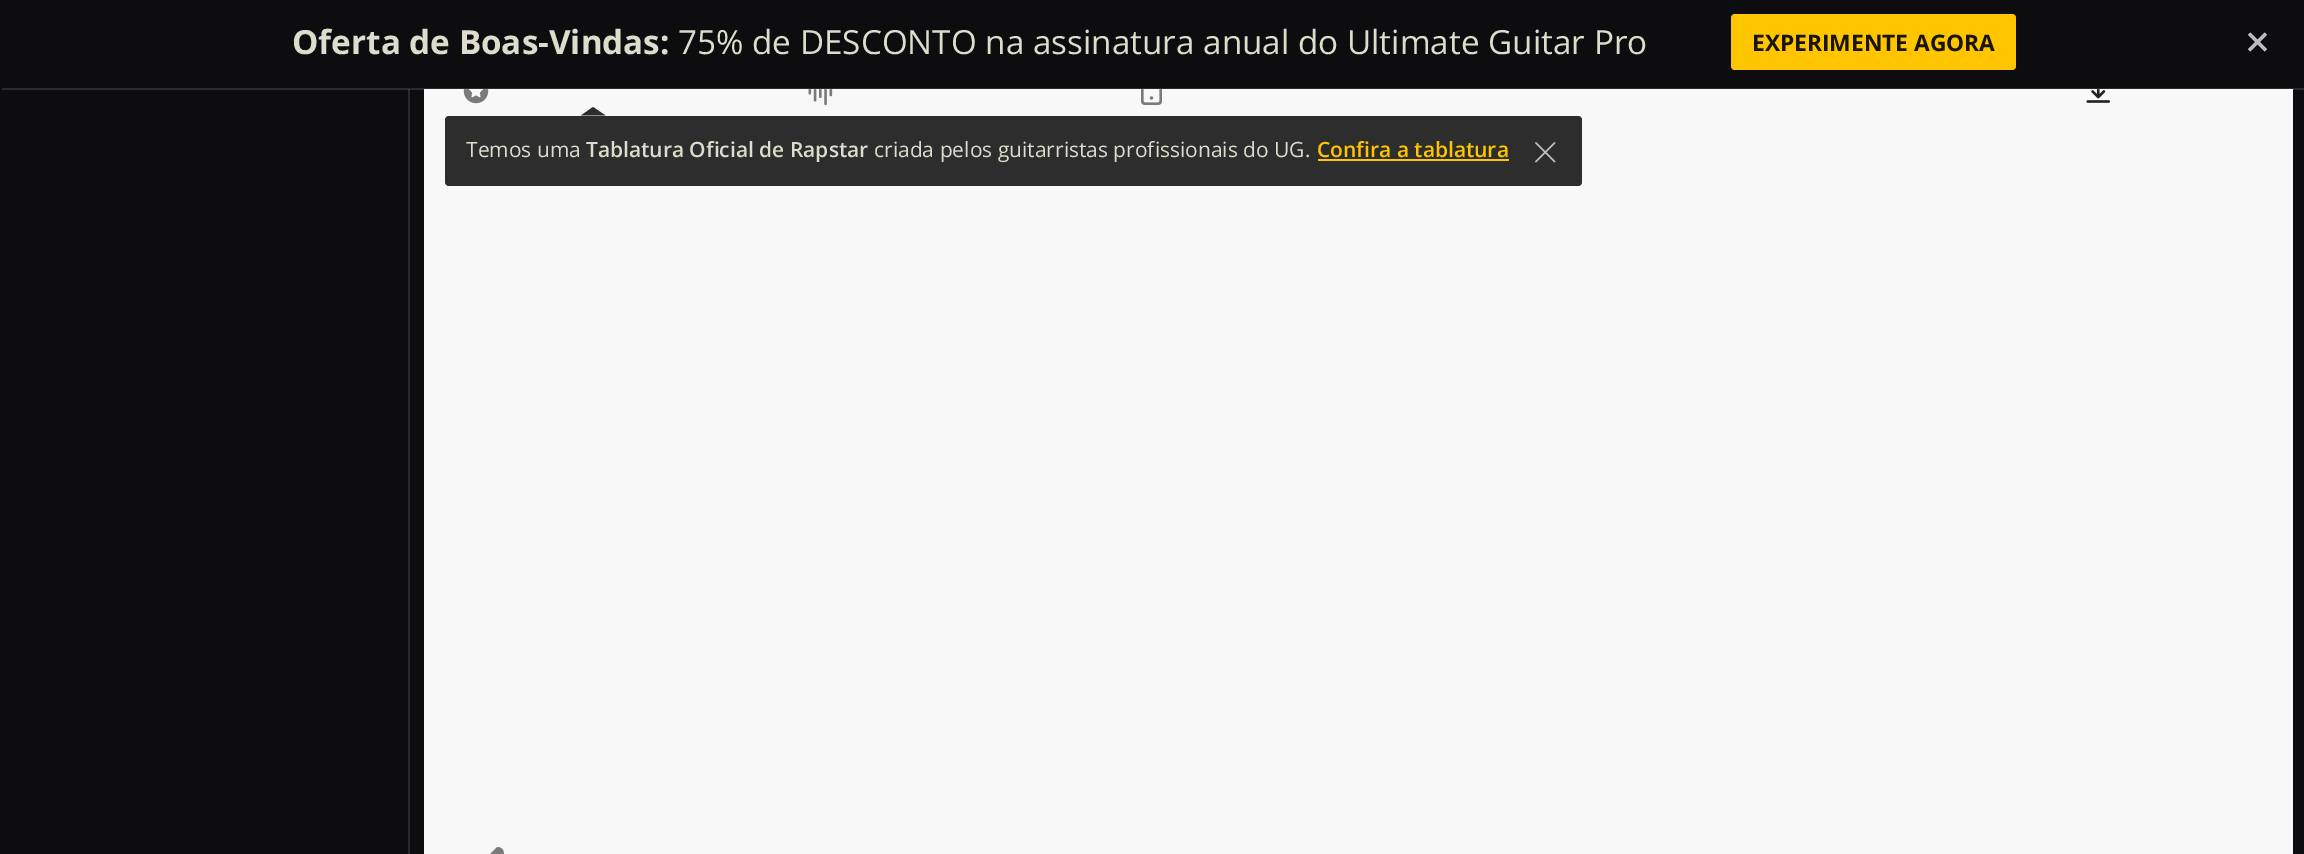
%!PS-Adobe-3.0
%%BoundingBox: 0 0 2304 854
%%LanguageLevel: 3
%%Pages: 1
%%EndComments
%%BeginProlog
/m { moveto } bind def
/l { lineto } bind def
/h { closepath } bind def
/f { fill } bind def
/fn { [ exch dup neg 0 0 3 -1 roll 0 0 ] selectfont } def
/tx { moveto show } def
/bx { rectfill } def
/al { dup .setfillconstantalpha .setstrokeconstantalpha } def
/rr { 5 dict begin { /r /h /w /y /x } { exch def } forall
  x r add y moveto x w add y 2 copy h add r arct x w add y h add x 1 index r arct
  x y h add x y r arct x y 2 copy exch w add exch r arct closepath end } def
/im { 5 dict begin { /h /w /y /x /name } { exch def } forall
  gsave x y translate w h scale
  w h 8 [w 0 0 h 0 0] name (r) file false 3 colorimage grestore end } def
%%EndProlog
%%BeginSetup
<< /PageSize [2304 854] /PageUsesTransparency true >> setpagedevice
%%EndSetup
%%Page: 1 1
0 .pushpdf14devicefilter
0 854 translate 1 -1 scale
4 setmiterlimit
0.051 0.051 0.063 setrgbcolor
0 0 2304 854 bx
0.165 0.165 0.176 setrgbcolor
408 89 2 765 bx
0.973 setgray
424 89 1869 765 bx
(image1.raw) 2086 89 24 14 im
(image2.raw) 808 89 25 16 im
(image3.raw) 1141 89 21 16 im
(image4.raw) 463 89 26 15 im
0.12 al
1 setgray
2 88 2302 2 bx
/OpenSans-Bold 33.25 fn
1 al
0.867 0.867 0.8 setrgbcolor
(Oferta de Boas-Vindas:) 292 54 tx
/OpenSans-Regular 33.25 fn
(75% de DESCONTO na assinatura anual do Ultimate Guitar Pro) 678 54 tx
1 0.776 0 setrgbcolor
1731 14 285 56 4 rr f
/OpenSans-Bold 22.75 fn
0.102 0.078 0 setrgbcolor
(EXPERIMENTE AGORA) 1752 51 tx
(image0.raw) 2248 32 19 20 im
0.176 setgray
445 116 1137 70 4 rr f
605.5 115.5 m 581 115.5 l 593 107 l h f
/OpenSans-Regular 21 fn
0.867 0.867 0.8 setrgbcolor
(Temos uma) 466 157 tx
/OpenSans-SemiBold 21 fn
(Tablatura Oficial de Rapstar) 586 157 tx
/OpenSans-Regular 21 fn
(criada pelos guitarristas profissionais do UG.) 874 157 tx
/OpenSans-SemiBold 21 fn
1 0.776 0 setrgbcolor
(Confira a tablatura) 1317 157 tx
1318 159 191 2 bx
(image5.raw) 1535 142 21 21 im
(image6.raw) 490 847 14 7 im
.poppdf14devicefilter showpage
%%EOF
